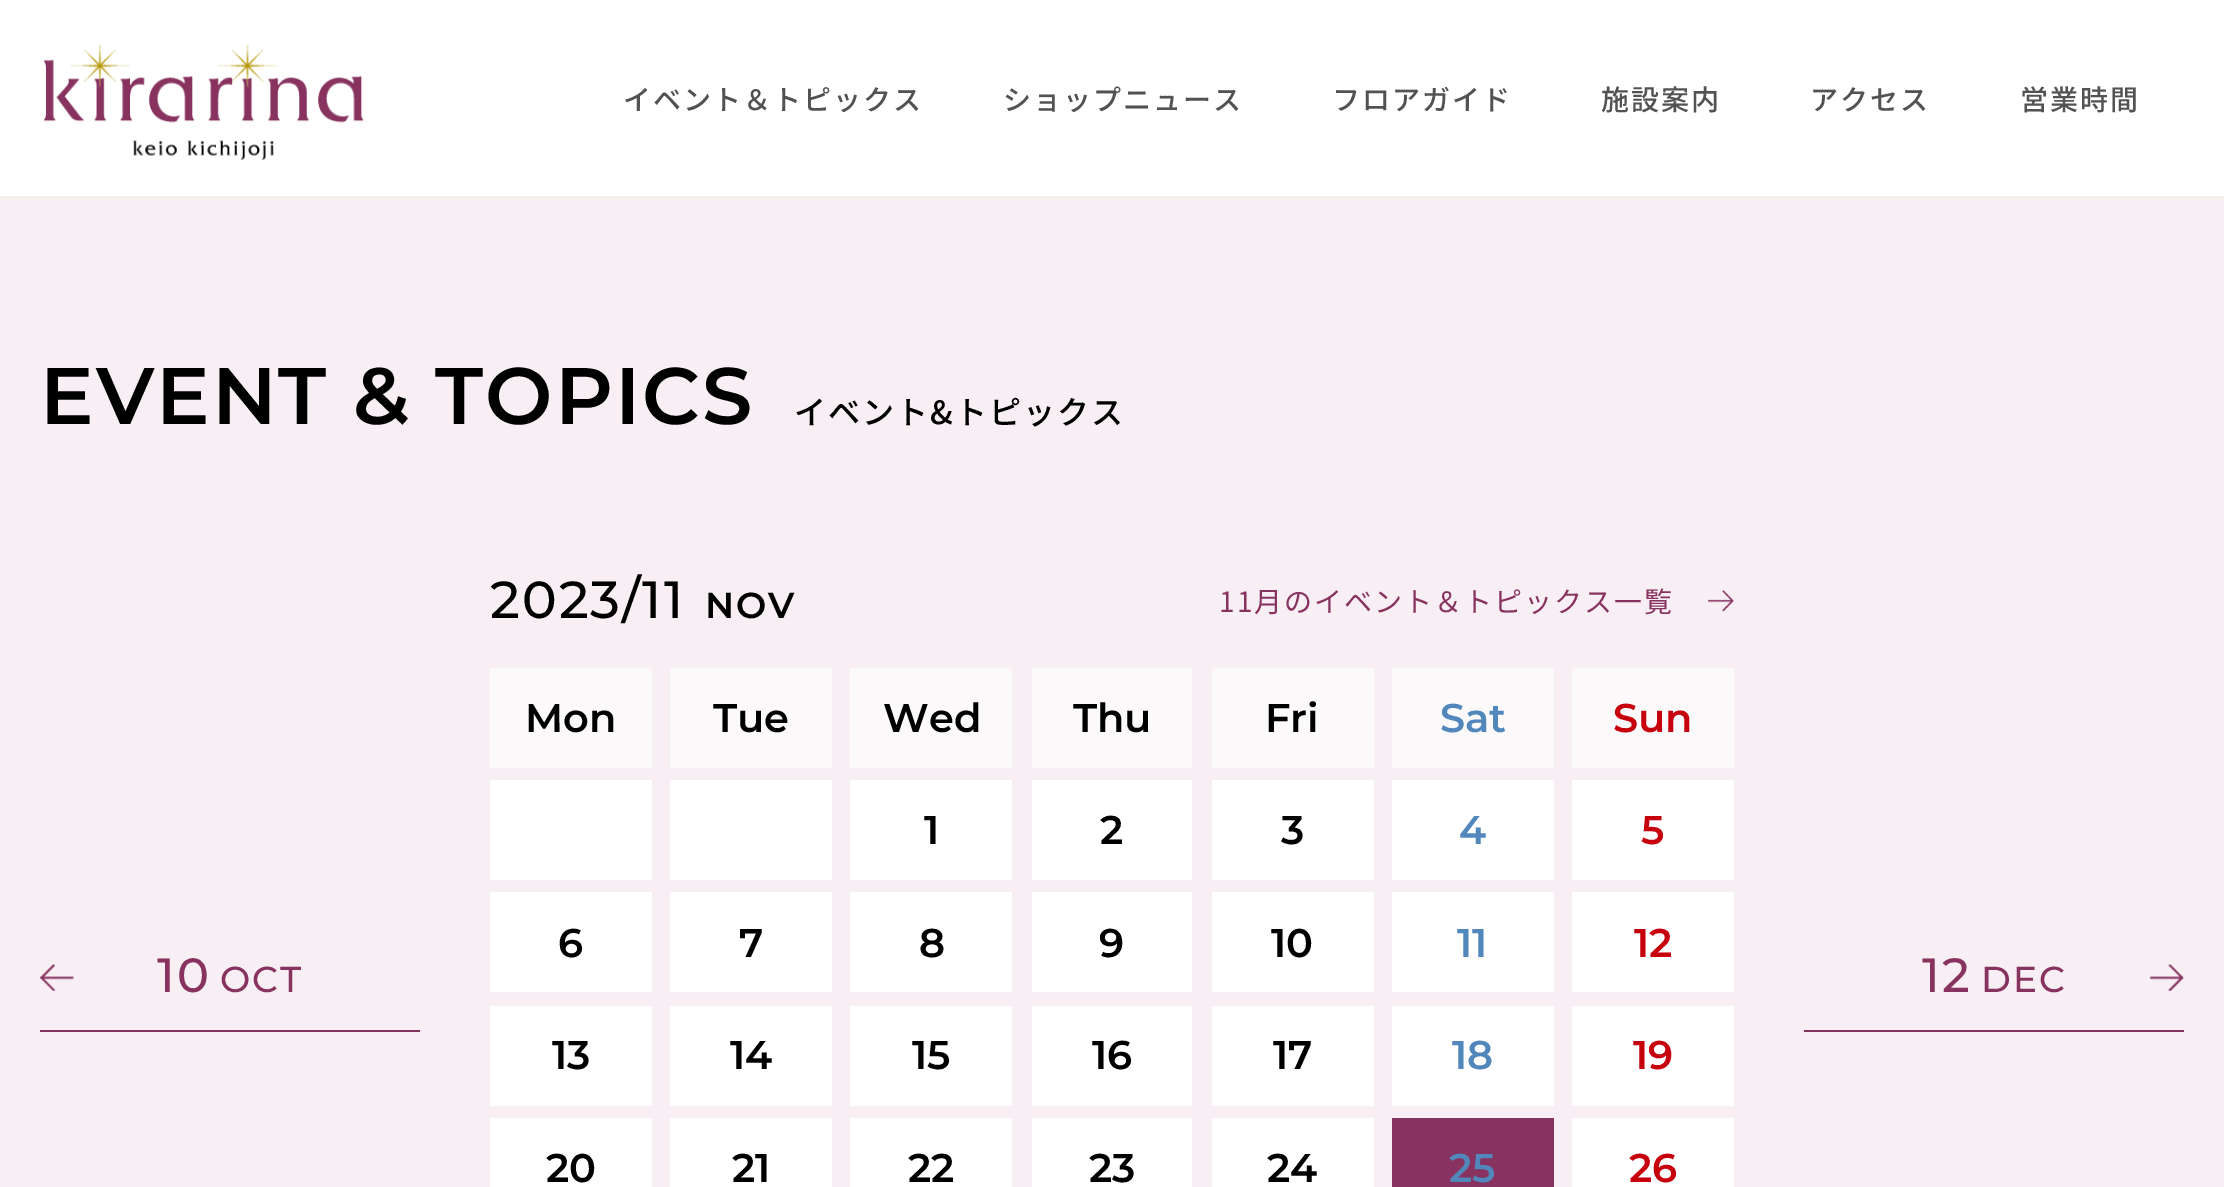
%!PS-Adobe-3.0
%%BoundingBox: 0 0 2224 1187
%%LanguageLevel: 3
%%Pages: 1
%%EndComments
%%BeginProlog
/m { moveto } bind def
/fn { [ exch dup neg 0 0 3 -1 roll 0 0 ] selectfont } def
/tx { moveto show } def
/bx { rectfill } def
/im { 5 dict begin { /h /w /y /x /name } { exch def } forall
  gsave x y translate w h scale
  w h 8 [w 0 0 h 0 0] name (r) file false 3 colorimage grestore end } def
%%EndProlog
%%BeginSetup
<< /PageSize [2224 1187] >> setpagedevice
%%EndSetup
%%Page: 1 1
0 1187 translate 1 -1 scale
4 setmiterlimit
1 setgray
0 0 2224 1187 bx
0.961 0.953 0.914 setrgbcolor
0 196 2224 4 bx
(image0.raw) 44 44 320 116 im
/NotoSansJP-Medium 28 fn
0.325 0.322 0.322 setrgbcolor
623 110 m 2 0 (イベント＆トピックス) ashow
1003 110 m 2 0 (ショップニュース) ashow
1332 110 m 2 0 (フロアガイド) ashow
1601 110 m 2 0 (施設案内) ashow
1810 110 m 2 0 (アクセス) ashow
2020 110 m 2 0 (営業時間) ashow
0.969 0.937 0.953 setrgbcolor
0 200 2224 987 bx
/Montserrat-SemiBold 80 fn
0 setgray
40 424 m 2 0 (EVENT & TOPICS) ashow
/NotoSansJP-Medium 32 fn
794 424 m 2 0 (イベント&トピックス) ashow
(image1.raw) 40 964 34 27 im
0.529 0.196 0.373 setrgbcolor
40 1030 380 2 bx
/Montserrat-Medium 48 fn
157 992 m 2 0 (10) ashow
/Montserrat-Medium 36 fn
220 992 m 2 0 (OCT) ashow
/Montserrat-Medium 52 fn
0 setgray
490 618 m 2 0 (2023/11) ashow
/Montserrat-SemiBold 36 fn
705 618 m 2 0 (NOV) ashow
(image2.raw) 1708 590 26 22 im
/NotoSansJP-Regular 28 fn
0.529 0.196 0.373 setrgbcolor
1219 612 m 2 0 (11月のイベント＆トピックス一覧) ashow
0.988 0.976 0.98 setrgbcolor
490 668 162 100 bx
/Montserrat-SemiBold 40 fn
0 setgray
(Mon) 525 732 tx
0.988 0.976 0.98 setrgbcolor
670 668 162 100 bx
0 setgray
(Tue) 713 732 tx
0.988 0.976 0.98 setrgbcolor
850 668 162 100 bx
0 setgray
(Wed) 883 732 tx
0.988 0.976 0.98 setrgbcolor
1032 668 160 100 bx
0 setgray
(Thu) 1073 732 tx
0.988 0.976 0.98 setrgbcolor
1212 668 162 100 bx
0 setgray
(Fri) 1265 732 tx
0.988 0.976 0.98 setrgbcolor
1392 668 162 100 bx
0.322 0.529 0.737 setrgbcolor
(Sat) 1440 732 tx
0.988 0.976 0.98 setrgbcolor
1572 668 162 100 bx
0.78 0 0.055 setrgbcolor
(Sun) 1613 732 tx
1 setgray
490 780 162 100 bx
670 780 162 100 bx
850 780 162 100 bx
0 setgray
(1) 924 844 tx
1 setgray
1032 780 160 100 bx
0 setgray
(2) 1100 844 tx
1 setgray
1212 780 162 100 bx
0 setgray
(3) 1281 844 tx
1 setgray
1392 780 162 100 bx
0.322 0.529 0.737 setrgbcolor
(4) 1459 844 tx
1 setgray
1572 780 162 100 bx
0.78 0 0.055 setrgbcolor
(5) 1641 844 tx
1 setgray
490 892 162 100 bx
0 setgray
(6) 558 957 tx
1 setgray
670 892 162 100 bx
0 setgray
(7) 739 957 tx
1 setgray
850 892 162 100 bx
0 setgray
(8) 919 957 tx
1 setgray
1032 892 160 100 bx
0 setgray
(9) 1099 957 tx
1 setgray
1212 892 162 100 bx
0 setgray
(10) 1271 957 tx
1 setgray
1392 892 162 100 bx
0.322 0.529 0.737 setrgbcolor
(11) 1457 957 tx
1 setgray
1572 892 162 100 bx
0.78 0 0.055 setrgbcolor
(12) 1634 957 tx
1 setgray
490 1006 162 100 bx
0 setgray
(13) 552 1069 tx
1 setgray
670 1006 162 100 bx
0 setgray
(14) 730 1069 tx
1 setgray
850 1006 162 100 bx
0 setgray
(15) 912 1069 tx
1 setgray
1032 1006 160 100 bx
0 setgray
(16) 1092 1069 tx
1 setgray
1212 1006 162 100 bx
0 setgray
(17) 1273 1069 tx
1 setgray
1392 1006 162 100 bx
0.322 0.529 0.737 setrgbcolor
(18) 1452 1069 tx
1 setgray
1572 1006 162 100 bx
0.78 0 0.055 setrgbcolor
(19) 1633 1069 tx
1 setgray
490 1118 162 69 bx
0 setgray
(20) 546 1182 tx
1 setgray
670 1118 162 69 bx
0 setgray
(21) 732 1182 tx
1 setgray
850 1118 162 69 bx
0 setgray
(22) 908 1182 tx
1 setgray
1032 1118 160 69 bx
0 setgray
(23) 1089 1182 tx
1 setgray
1212 1118 162 69 bx
0 setgray
(24) 1267 1182 tx
0.529 0.196 0.373 setrgbcolor
1392 1118 162 69 bx
0.322 0.529 0.737 setrgbcolor
(25) 1449 1182 tx
1 setgray
1572 1118 162 69 bx
0.78 0 0.055 setrgbcolor
(26) 1629 1182 tx
(image3.raw) 2150 964 34 27 im
0.529 0.196 0.373 setrgbcolor
1804 1030 380 2 bx
/Montserrat-Medium 48 fn
1922 992 m 2 0 (12) ashow
/Montserrat-Medium 36 fn
1981 992 m 2 0 (DEC) ashow
showpage
%%EOF
